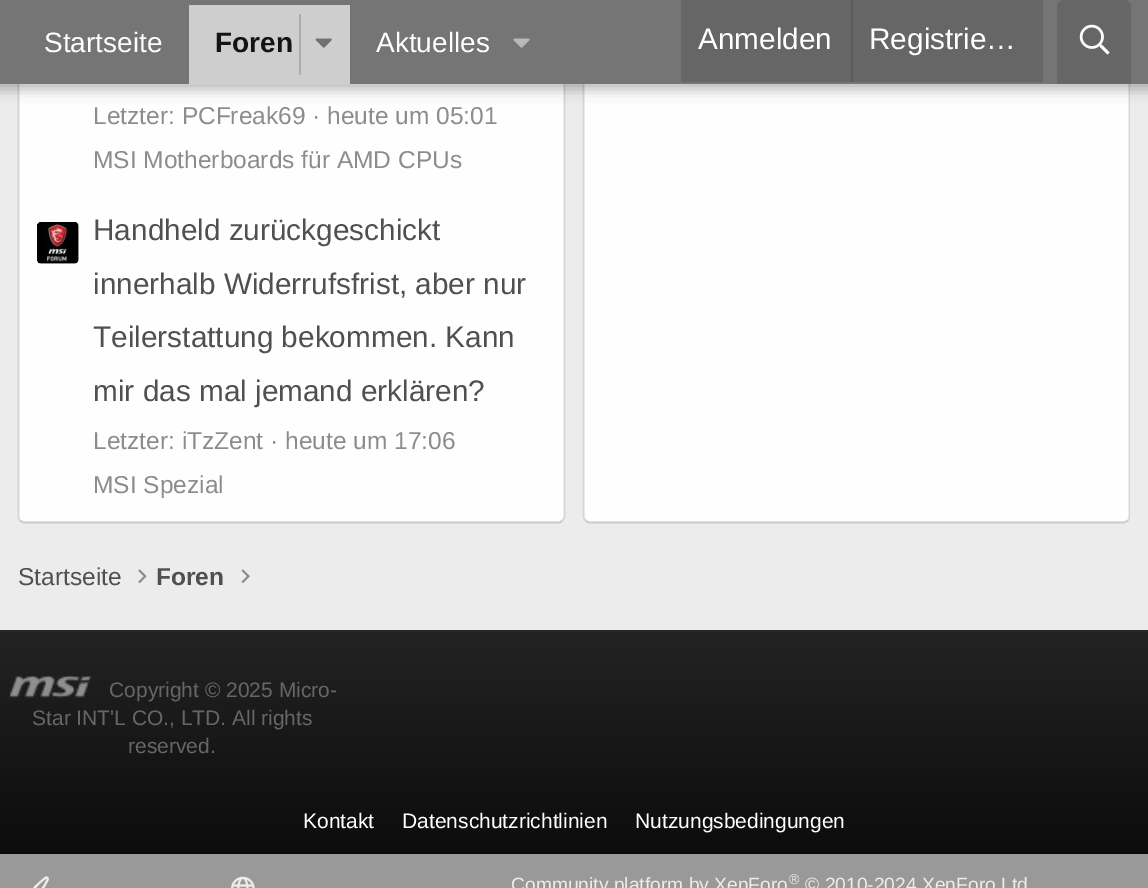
%!PS-Adobe-3.0
%%BoundingBox: 0 0 1148 888
%%LanguageLevel: 3
%%Pages: 1
%%EndComments
%%BeginProlog
/m { moveto } bind def
/l { lineto } bind def
/c { curveto } bind def
/h { closepath } bind def
/f { fill } bind def
/S { stroke } bind def
/q { gsave } bind def
/Q { grestore } bind def
/w { setlinewidth } bind def
/fn { [ exch dup neg 0 0 3 -1 roll 0 0 ] selectfont } def
/tx { moveto show } def
/bx { rectfill } def
/al { dup .setfillconstantalpha .setstrokeconstantalpha } def
/rr { 5 dict begin { /r /h /w /y /x } { exch def } forall
  x r add y moveto x w add y 2 copy h add r arct x w add y h add x 1 index r arct
  x y h add x y r arct x y 2 copy exch w add exch r arct closepath end } def
/sh { 12 dict begin { /a /b /q /h /w /y /x } { exch def } forall gsave /was 0 def
  9 -2 -9 { dup b mul 4 div /e exch def 1 sub .425 mul 2.718 exch exp 1 add a .99 .min exch div /now exch def
    1 1 now sub 1 was sub div sub al /was now def
    w h .min e 2 mul add 0 gt { x e sub y e sub w e 2 mul add h e 2 mul add
      q e add b .6 mul add w h .min 2 div e add .min 0 .max rr fill } if } for grestore end } def
/im { 5 dict begin { /h /w /y /x /name } { exch def } forall
  gsave x y translate w h scale
  w h 8 [w 0 0 h 0 0] name (r) file false 3 colorimage grestore end } def
%%EndProlog
%%BeginSetup
<< /PageSize [1148 888] /PageUsesTransparency true >> setpagedevice
%%EndSetup
%%Page: 1 1
0 .pushpdf14devicefilter
0 888 translate 1 -1 scale
4 setmiterlimit
0.925 setgray
0 0 1148 888 bx
0.996 setgray
18 -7 547 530 7 rr f
0.847 setgray
1.8 w
562.5 -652 m 563.5 -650.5 564.5 -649 564.5 -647.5 c 564.5 516 l 564.5 518 563.5 519.5 562.5 520.5 c S
0.796 setgray
562.5 520.5 m 561.5 521.5 560 522.5 558 522.5 c 24.5 522.5 l 23 522.5 21.5 521.5 20 520.5 c S
0.847 setgray
20 520.5 m 19 519.5 18.5 518 18.5 516 c 18.5 -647.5 l 18.5 -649 19 -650.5 20 -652 c S
0.996 setgray
583 -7 548 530 7 rr f
0.847 setgray
1128 -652 m 1129 -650.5 1129.5 -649 1129.5 -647.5 c 1129.5 516 l 1129.5 518 1129 519.5 1128 520.5 c S
0.796 setgray
1128 520.5 m 1126.5 521.5 1125 522.5 1123.5 522.5 c 590 522.5 l 588 522.5 586.5 521.5 585.5 520.5 c S
0.847 setgray
585.5 520.5 m 584.5 519.5 583.5 518 583.5 516 c 583.5 -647.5 l 583.5 -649 584.5 -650.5 585.5 -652 c S
0 setgray
-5 -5 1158 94 0 7 0.3 sh
0.459 setgray
0 0 1148 84 bx
/LiberationSans-Regular 28 fn
1 setgray
(Startseite) 44 52 tx
0.808 setgray
189 5 161 79 bx
/LiberationSans-Bold 28 fn
0.078 setgray
(Foren) 215 52 tx
0.678 setgray
299 14 2 61 bx
(image0.raw) 315 38 17 10 im
/LiberationSans-Regular 28 fn
1 setgray
(Aktuelles) 376 52 tx
(image1.raw) 513 38 17 10 im
0.4 setgray
681 0 362 82 bx
/LiberationSans-Regular 29.75 fn
1 setgray
(Anmelden) 698 49 tx
0.353 setgray
851 0 2 82 bx
1 setgray
(Registrie…) 869 49 tx
0.4 setgray
1064 0 m 1124 0 l 1128 0 1131 3 1131 7 c 1131 84 l 1057 84 l 1057 7 l 1057 3 1060 0 1064 0 c h f
(image2.raw) 1079 24 31 31 im
/LiberationSans-Regular 24.5 fn
0.549 setgray
(Letzter: PCFreak69 · heute um 05:01) 93 124 tx
(MSI Motherboards für AMD CPUs) 93 168 tx
(image3.raw) 37 222 42 42 im
/LiberationSans-Regular 29.75 fn
0.314 setgray
(Handheld zurückgeschickt) 93 240 tx
(innerhalb Widerrufsfrist, aber nur) 93 294 tx
(Teilerstattung bekommen. Kann) 93 347 tx
(mir das mal jemand erklären?) 93 401 tx
/LiberationSans-Regular 24.5 fn
0.549 setgray
(Letzter: iTzZent · heute um 17:06) 93 449 tx
(MSI Spezial) 93 493 tx
0.314 setgray
(Startseite) 18 585 tx
(image4.raw) 138 569 9 14 im
/LiberationSans-Bold 24.5 fn
(Foren) 156 585 tx
(image5.raw) 241 569 9 14 im
q 0 632 m 1148 632 l 1148 854 l 0 854 l h clip newpath
<< /ShadingType 2 /ColorSpace /DeviceRGB /Coords [574 854 574 630] /Extend [true true] /Function << /FunctionType 2 /Domain [0 1] /C0 [0.047 0.047 0.047] /C1 [0.137 0.137 0.137] /N 1 >> >> shfill Q
0.149 setgray
0 630 1148 2 bx
(image6.raw) 9 675 83 23 im
/LiberationSans-Regular 21 fn
0.4 setgray
(Copyright © 2025 Micro-) 109 697 tx
(Star INT'L CO., LTD. All rights) 32 725 tx
(reserved.) 128 753 tx
1 setgray
(Kontakt) 303 828 tx
(Datenschutzrichtlinien) 402 828 tx
(Nutzungsbedingungen) 635 828 tx
0.6 setgray
0 854 1148 34 bx
(image7.raw) 33 876 16 12 im
(image8.raw) 231 876 24 12 im
/LiberationSans-Regular 19.25 fn
0.925 setgray
(Community platform by XenForo) 511 891 tx
/LiberationSans-Regular 14 fn
(®) 789 884 tx
/LiberationSans-Regular 19.25 fn
(© 2010-2024 XenForo Ltd) 805 891 tx
.poppdf14devicefilter showpage
%%EOF
